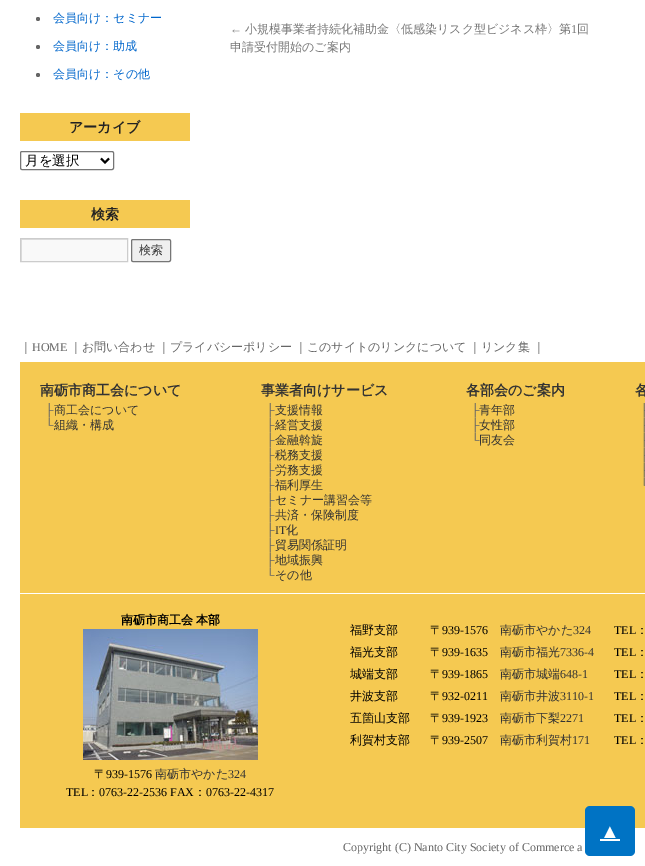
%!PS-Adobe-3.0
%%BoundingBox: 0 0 645 866
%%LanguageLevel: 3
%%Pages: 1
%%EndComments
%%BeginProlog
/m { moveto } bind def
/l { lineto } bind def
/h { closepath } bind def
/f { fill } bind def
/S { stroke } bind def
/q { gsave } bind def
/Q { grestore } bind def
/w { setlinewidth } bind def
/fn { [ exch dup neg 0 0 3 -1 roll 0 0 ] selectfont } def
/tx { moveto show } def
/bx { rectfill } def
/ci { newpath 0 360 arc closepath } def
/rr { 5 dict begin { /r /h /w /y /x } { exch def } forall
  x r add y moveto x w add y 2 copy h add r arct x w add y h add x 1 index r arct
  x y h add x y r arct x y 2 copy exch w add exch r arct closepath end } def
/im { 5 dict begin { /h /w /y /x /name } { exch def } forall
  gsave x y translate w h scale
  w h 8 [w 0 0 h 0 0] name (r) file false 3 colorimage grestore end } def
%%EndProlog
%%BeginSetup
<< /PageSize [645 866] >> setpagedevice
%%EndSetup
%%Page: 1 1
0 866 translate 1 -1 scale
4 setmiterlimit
1 setgray
0 0 645 866 bx
0.4 setgray
38 19 2 ci f
/WenQuanYiZenHei-Medium 12 fn
0 0.4 0.8 setrgbcolor
(会員向け：セミナー) 53 22 tx
0.4 setgray
38 47 2 ci f
0 0.4 0.8 setrgbcolor
(会員向け：助成) 53 50 tx
0.4 setgray
38 75 2 ci f
0 0.4 0.8 setrgbcolor
(会員向け：その他) 53 78 tx
0.961 0.788 0.318 setrgbcolor
20 113 170 28 bx
/WenQuanYiZenHei-Bold 14 fn
0.133 setgray
(アーカイブ) 69 132 tx
0.463 setgray
20.5 151.5 93 18 1.5 rr S
0 setgray
2 w
101 158.5 m 105 162.5 l 109 158.5 l S
/WenQuanYiZenHei-Medium 13.5 fn
(月を選択) 25 165 tx
0.961 0.788 0.318 setrgbcolor
20 200 170 28 bx
/WenQuanYiZenHei-Bold 14 fn
0.133 setgray
(検索) 91 219 tx
0.976 setgray
22 240 105 21 bx
q
21 239 106 22 rectclip
0.878 setgray
-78 140 m 226 140 l 226 360 l -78 360 l h 22 240 m 128 240 l 128 262 l 22 262 l h eofill
Q
0.8 setgray
1 w
20.5 238.5 107 23 rectstroke
0.937 setgray
131.5 239.5 39 22 1.5 rr q f Q
0.463 setgray
S
/WenQuanYiZenHei-Medium 12 fn
0.2 setgray
(検索) 139 254 tx
/LiberationSerif-Regular 12 fn
0.467 setgray
(←) 230 33 tx
/WenQuanYiZenHei-Medium 12 fn
(小規模事業者持続化補助金〈低感染リスク型ビジネス枠〉第) 245 33 tx
/LiberationSerif-Regular 12 fn
(1) 571 33 tx
/WenQuanYiZenHei-Medium 12 fn
(回) 577 33 tx
(申請受付開始のご案内) 230 51 tx
0.4 setgray
(｜) 20 351 tx
/LiberationSerif-Regular 12 fn
(HOME) 32 351 tx
/WenQuanYiZenHei-Medium 12 fn
(｜お問い合わせ) 70 351 tx
(｜プライバシーポリシー) 158 351 tx
(｜このサイトのリンクについて) 295 351 tx
(｜リンク集) 469 351 tx
(｜) 533 351 tx
0.961 0.788 0.318 setrgbcolor
20 362 625 466 bx
1 setgray
20 593 625 1 bx
/WenQuanYiZenHei-Bold 14 fn
0.2 setgray
(南砺市商工会について) 40 395 tx
/LiberationSerif-Regular 12 fn
0.4 setgray
(├) 45 414 tx
/WenQuanYiZenHei-Medium 12 fn
0.2 setgray
(商工会について) 54 414 tx
/LiberationSerif-Regular 12 fn
0.4 setgray
(└) 45 429 tx
/WenQuanYiZenHei-Medium 12 fn
0.2 setgray
(組織・構成) 54 429 tx
/WenQuanYiZenHei-Bold 14 fn
(事業者向けサービス) 261 395 tx
/LiberationSerif-Regular 12 fn
0.4 setgray
(├) 266 414 tx
/WenQuanYiZenHei-Medium 12 fn
0.2 setgray
(支援情報) 275 414 tx
/LiberationSerif-Regular 12 fn
0.4 setgray
(├) 266 429 tx
/WenQuanYiZenHei-Medium 12 fn
0.2 setgray
(経営支援) 275 429 tx
/LiberationSerif-Regular 12 fn
0.4 setgray
(├) 266 444 tx
/WenQuanYiZenHei-Medium 12 fn
0.2 setgray
(金融斡旋) 275 444 tx
/LiberationSerif-Regular 12 fn
0.4 setgray
(├) 266 459 tx
/WenQuanYiZenHei-Medium 12 fn
0.2 setgray
(税務支援) 275 459 tx
/LiberationSerif-Regular 12 fn
0.4 setgray
(├) 266 474 tx
/WenQuanYiZenHei-Medium 12 fn
0.2 setgray
(労務支援) 275 474 tx
/LiberationSerif-Regular 12 fn
0.4 setgray
(├) 266 489 tx
/WenQuanYiZenHei-Medium 12 fn
0.2 setgray
(福利厚生) 275 489 tx
/LiberationSerif-Regular 12 fn
0.4 setgray
(├) 266 504 tx
/WenQuanYiZenHei-Medium 12 fn
0.2 setgray
(セミナー講習会等) 275 504 tx
/LiberationSerif-Regular 12 fn
0.4 setgray
(├) 266 519 tx
/WenQuanYiZenHei-Medium 12 fn
0.2 setgray
(共済・保険制度) 275 519 tx
/LiberationSerif-Regular 12 fn
0.4 setgray
(├) 266 534 tx
0.2 setgray
(IT) 275 534 tx
/WenQuanYiZenHei-Medium 12 fn
(化) 286 534 tx
/LiberationSerif-Regular 12 fn
0.4 setgray
(├) 266 549 tx
/WenQuanYiZenHei-Medium 12 fn
0.2 setgray
(貿易関係証明) 275 549 tx
/LiberationSerif-Regular 12 fn
0.4 setgray
(├) 266 564 tx
/WenQuanYiZenHei-Medium 12 fn
0.2 setgray
(地域振興) 275 564 tx
/LiberationSerif-Regular 12 fn
0.4 setgray
(└) 266 579 tx
/WenQuanYiZenHei-Medium 12 fn
0.2 setgray
(その他) 275 579 tx
/WenQuanYiZenHei-Bold 14 fn
(各部会のご案内) 466 395 tx
/LiberationSerif-Regular 12 fn
0.4 setgray
(├) 471 414 tx
/WenQuanYiZenHei-Medium 12 fn
0.2 setgray
(青年部) 479 414 tx
/LiberationSerif-Regular 12 fn
0.4 setgray
(├) 471 429 tx
/WenQuanYiZenHei-Medium 12 fn
0.2 setgray
(女性部) 479 429 tx
/LiberationSerif-Regular 12 fn
0.4 setgray
(└) 471 444 tx
/WenQuanYiZenHei-Medium 12 fn
0.2 setgray
(同友会) 479 444 tx
/WenQuanYiZenHei-Bold 14 fn
(各) 635 395 tx
/LiberationSerif-Regular 12 fn
0.4 setgray
(├) 640 414 tx
(├) 640 429 tx
(├) 640 444 tx
(├) 640 459 tx
(├) 640 474 tx
(└) 640 489 tx
/WenQuanYiZenHei-Bold 12 fn
0 setgray
121 624 m -1 0 32 (南砺市商工会 本部) widthshow
(image0.raw) 83 629 175 131 im
/WenQuanYiZenHei-Medium 12 fn
(〒) 94 778 tx
/LiberationSerif-Regular 12 fn
(939-1576) 106 778 tx
/WenQuanYiZenHei-Medium 12 fn
0.2 setgray
(南砺市やかた) 155 778 tx
/LiberationSerif-Regular 12 fn
(324) 228 778 tx
0 setgray
(TEL) 66 796 tx
/WenQuanYiZenHei-Medium 12 fn
(：) 87 796 tx
/LiberationSerif-Regular 12 fn
(0763-22-2536 FAX) 99 796 tx
/WenQuanYiZenHei-Medium 12 fn
(：) 194 796 tx
/LiberationSerif-Regular 12 fn
(0763-22-4317) 206 796 tx
/WenQuanYiZenHei-Medium 12 fn
(福野支部) 350 634 tx
(〒) 430 634 tx
/LiberationSerif-Regular 12 fn
(939-1576) 442 634 tx
/WenQuanYiZenHei-Medium 12 fn
0.2 setgray
(南砺市やかた) 500 634 tx
/LiberationSerif-Regular 12 fn
(324) 573 634 tx
0 setgray
(TEL) 614 634 tx
/WenQuanYiZenHei-Medium 12 fn
(：) 636 634 tx
(福光支部) 350 656 tx
(〒) 430 656 tx
/LiberationSerif-Regular 12 fn
(939-1635) 442 656 tx
/WenQuanYiZenHei-Medium 12 fn
0.2 setgray
(南砺市福光) 500 656 tx
/LiberationSerif-Regular 12 fn
(7336-4) 560 656 tx
0 setgray
(TEL) 614 656 tx
/WenQuanYiZenHei-Medium 12 fn
(：) 636 656 tx
(城端支部) 350 678 tx
(〒) 430 678 tx
/LiberationSerif-Regular 12 fn
(939-1865) 442 678 tx
/WenQuanYiZenHei-Medium 12 fn
0.2 setgray
(南砺市城端) 500 678 tx
/LiberationSerif-Regular 12 fn
(648-1) 560 678 tx
0 setgray
(TEL) 614 678 tx
/WenQuanYiZenHei-Medium 12 fn
(：) 636 678 tx
(井波支部) 350 700 tx
(〒) 430 700 tx
/LiberationSerif-Regular 12 fn
(932-0211) 442 700 tx
/WenQuanYiZenHei-Medium 12 fn
0.2 setgray
(南砺市井波) 500 700 tx
/LiberationSerif-Regular 12 fn
(3110-1) 560 700 tx
0 setgray
(TEL) 614 700 tx
/WenQuanYiZenHei-Medium 12 fn
(：) 636 700 tx
(五箇山支部) 350 722 tx
(〒) 430 722 tx
/LiberationSerif-Regular 12 fn
(939-1923) 442 722 tx
/WenQuanYiZenHei-Medium 12 fn
0.2 setgray
(南砺市下梨) 500 722 tx
/LiberationSerif-Regular 12 fn
(2271) 560 722 tx
0 setgray
(TEL) 614 722 tx
/WenQuanYiZenHei-Medium 12 fn
(：) 636 722 tx
(利賀村支部) 350 744 tx
(〒) 430 744 tx
/LiberationSerif-Regular 12 fn
(939-2507) 442 744 tx
/WenQuanYiZenHei-Medium 12 fn
0.2 setgray
(南砺市利賀村) 500 744 tx
/LiberationSerif-Regular 12 fn
(171) 572 744 tx
0 setgray
(TEL) 614 744 tx
/WenQuanYiZenHei-Medium 12 fn
(：) 636 744 tx
/LiberationSerif-Regular 12 fn
0.4 setgray
(Copyright \(C\) Nanto City Society of Commerce a) 343 851 tx
0 0.451 0.769 setrgbcolor
585 806 50 50 5 rr f
/LiberationSerif-Regular 20 fn
1 setgray
(▲) 600 838 tx
600 839 20 2 bx
showpage
%%EOF
